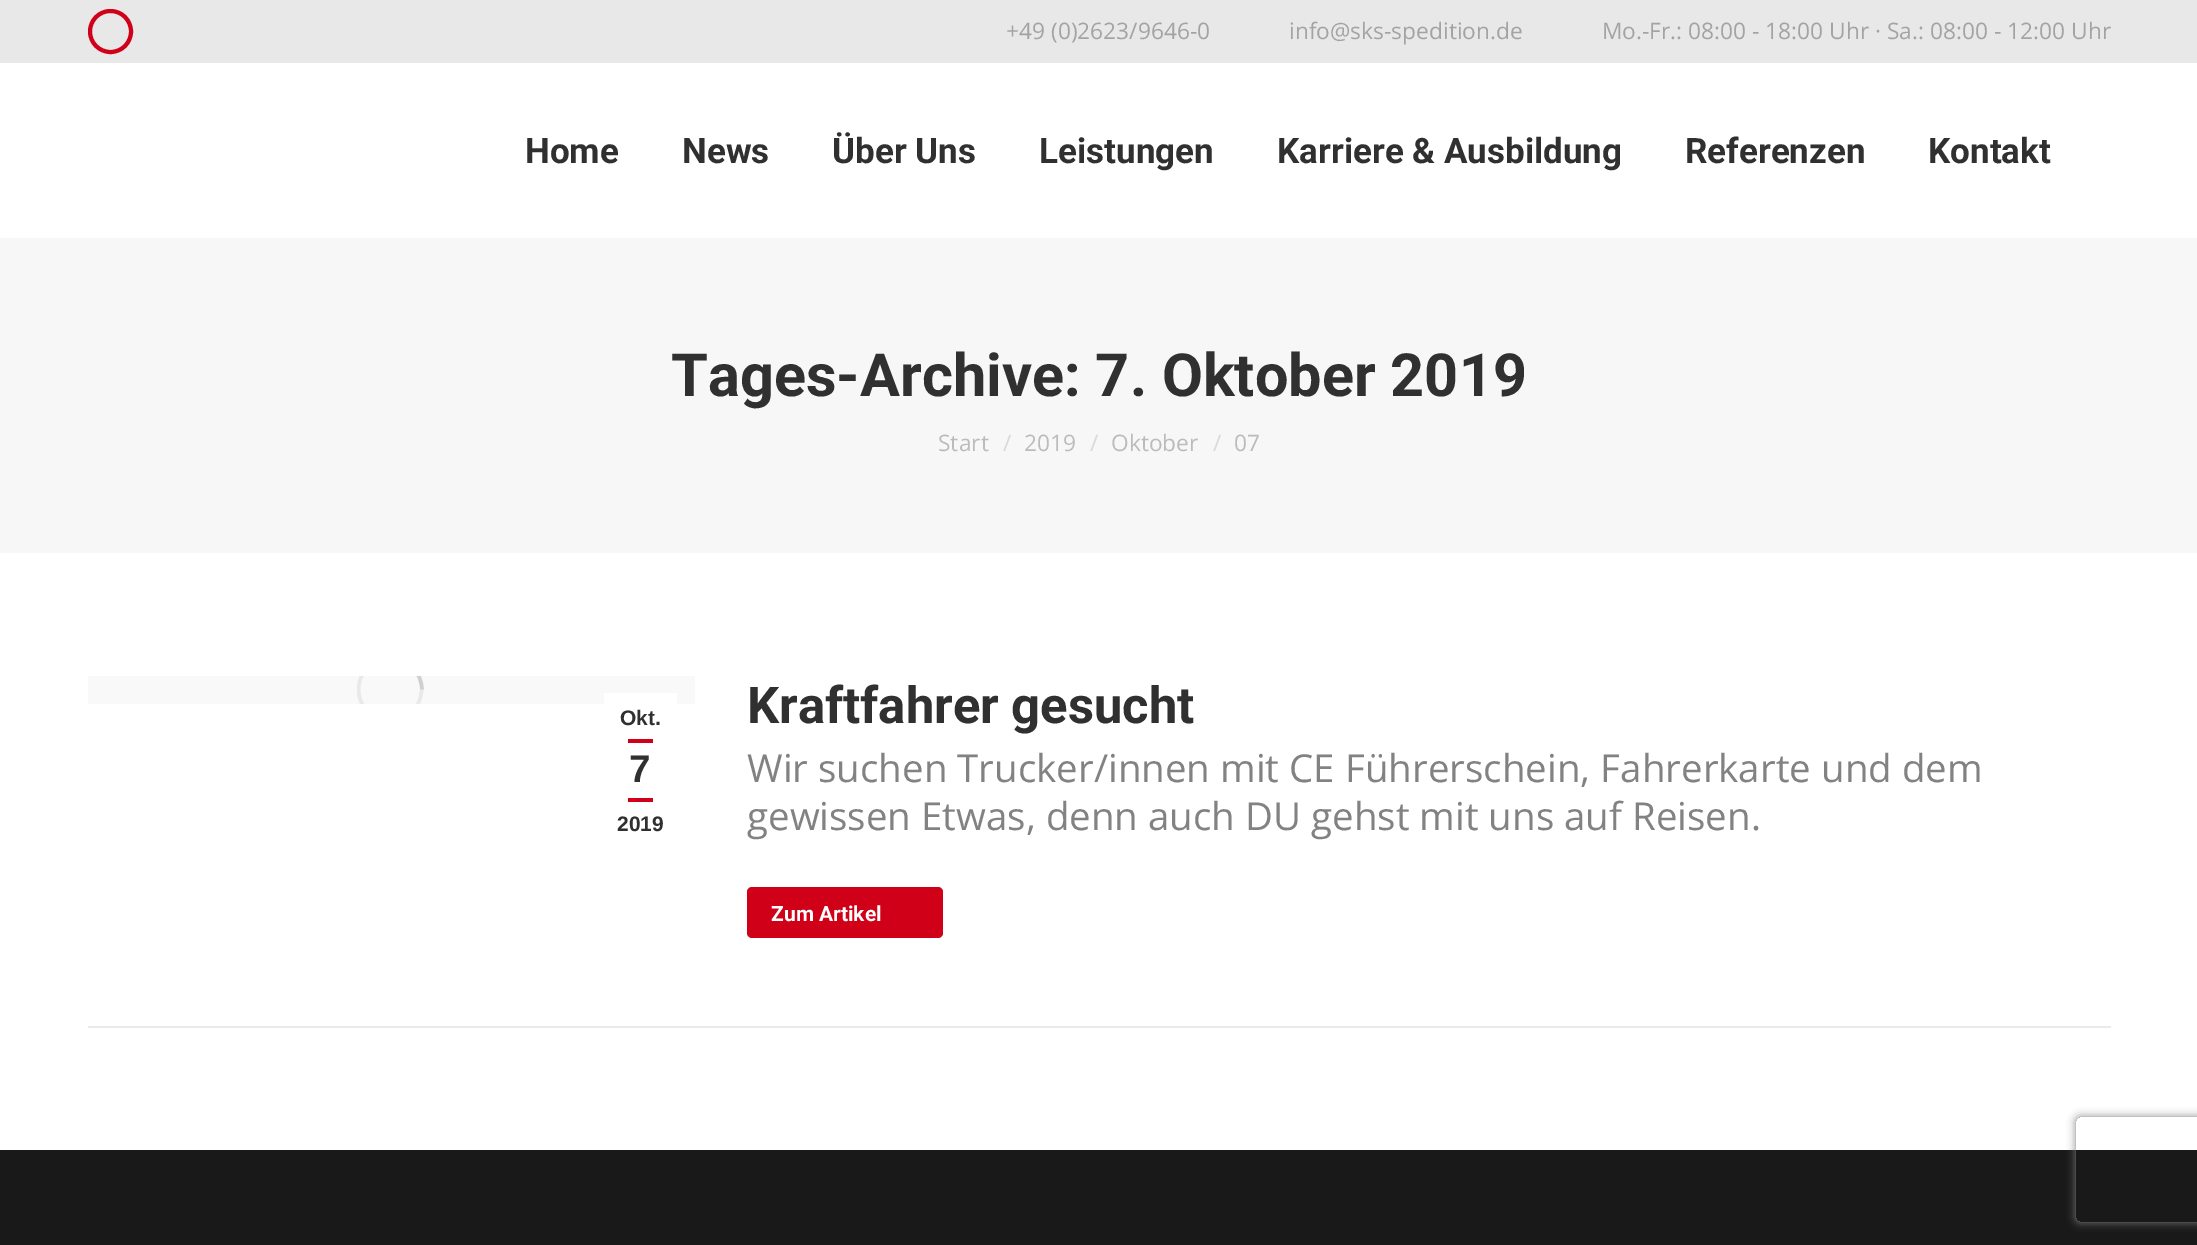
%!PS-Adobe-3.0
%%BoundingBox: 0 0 2197 1245
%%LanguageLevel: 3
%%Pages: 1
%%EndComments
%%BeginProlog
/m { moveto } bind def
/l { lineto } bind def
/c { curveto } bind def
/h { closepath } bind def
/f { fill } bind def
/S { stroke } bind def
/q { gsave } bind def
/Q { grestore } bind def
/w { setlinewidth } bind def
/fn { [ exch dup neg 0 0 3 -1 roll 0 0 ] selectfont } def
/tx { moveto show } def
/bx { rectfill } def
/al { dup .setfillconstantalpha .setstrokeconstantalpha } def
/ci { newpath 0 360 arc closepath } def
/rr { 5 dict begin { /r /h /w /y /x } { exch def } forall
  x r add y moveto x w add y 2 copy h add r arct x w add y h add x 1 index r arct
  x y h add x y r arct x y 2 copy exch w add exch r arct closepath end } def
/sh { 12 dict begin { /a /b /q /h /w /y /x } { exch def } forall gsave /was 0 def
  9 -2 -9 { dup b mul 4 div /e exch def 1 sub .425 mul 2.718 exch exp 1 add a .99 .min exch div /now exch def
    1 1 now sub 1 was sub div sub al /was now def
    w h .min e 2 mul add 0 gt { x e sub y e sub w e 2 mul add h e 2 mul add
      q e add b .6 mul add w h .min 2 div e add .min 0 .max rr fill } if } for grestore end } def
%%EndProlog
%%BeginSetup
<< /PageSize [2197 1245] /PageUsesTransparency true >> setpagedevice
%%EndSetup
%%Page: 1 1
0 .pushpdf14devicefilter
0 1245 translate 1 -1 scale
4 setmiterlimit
1 setgray
0 0 2197 1245 bx
0.91 setgray
0 0 2197 63 bx
0.816 0 0.098 setrgbcolor
4 w
110.5 31.5 20.5 ci S
/OpenSans-Regular 22.75 fn
0.639 setgray
(+49 \(0\)2623/9646-0) 1006 39 tx
(info@sks-spedition.de) 1289 39 tx
(Mo.-Fr.: 08:00 - 18:00 Uhr · Sa.: 08:00 - 12:00 Uhr) 1602 39 tx
/Roboto-Bold 35 fn
0.188 setgray
(Home) 525 163 tx
(News) 682 163 tx
(Über Uns) 832 163 tx
(Leistungen) 1039 163 tx
(Karriere & Ausbildung) 1277 163 tx
(Referenzen) 1685 163 tx
(Kontakt) 1928 163 tx
0.969 setgray
0 238 2197 315 bx
/Roboto-Bold 59.5 fn
0.188 setgray
(Tages-Archive: 7. Oktober 2019) 671 396 tx
/OpenSans-Regular 22.75 fn
0.733 setgray
(Start) 938 451 tx
0.851 setgray
(/) 1003 451 tx
0.733 setgray
(2019) 1024 451 tx
0.851 setgray
(/) 1090 451 tx
0.733 setgray
(Oktober) 1111 451 tx
0.851 setgray
(/) 1213 451 tx
0.733 setgray
(07) 1234 451 tx
0.918 setgray
88 1026 2023 2 bx
0.976 setgray
88 676 607 28 bx
q
357 676 67 28 rectclip
0.914 setgray
3.5 w
390 689.5 31.5 ci S
0.25 al
0.51 setgray
422 689.5 m 422 672 407.5 658 390 658 c S
Q
1 setgray
604 693 73 11 bx
/LiberationSans-Bold 21 fn
0.188 setgray
(Okt.) 620 725 tx
0.816 0 0.098 setrgbcolor
628 739 25 4 bx
/LiberationSans-Bold 38.5 fn
0.188 setgray
(7) 629 782 tx
0.816 0 0.098 setrgbcolor
628 798 25 4 bx
/LiberationSans-Bold 21 fn
0.188 setgray
(2019) 617 831 tx
/Roboto-Bold 50.75 fn
(Kraftfahrer gesucht) 747 723 tx
/OpenSans-Regular 38.5 fn
0.51 setgray
(Wir suchen Trucker/innen mit CE Führerschein, Fahrerkarte und dem) 747 782 tx
(gewissen Etwas, denn auch DU gehst mit uns auf Reisen.) 747 830 tx
0.816 0 0.098 setrgbcolor
747 887 196 51 5 rr f
/Roboto-Bold 21 fn
1 setgray
(Zum Artikel) 771 921 tx
0.098 setgray
0 1150 2197 95 bx
q
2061 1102 m 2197 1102 l 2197 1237 l 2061 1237 l h 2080 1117 m 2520 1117 l 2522 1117 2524 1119 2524 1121 c 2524 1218 l 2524 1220 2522 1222 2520 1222 c 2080 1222 l 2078 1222 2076 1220 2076 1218 c 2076 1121 l 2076 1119 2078 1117 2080 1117 c h eoclip newpath
0.502 setgray
2076 1117 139 105 4 4.5 1 sh
Q
.poppdf14devicefilter showpage
%%EOF
